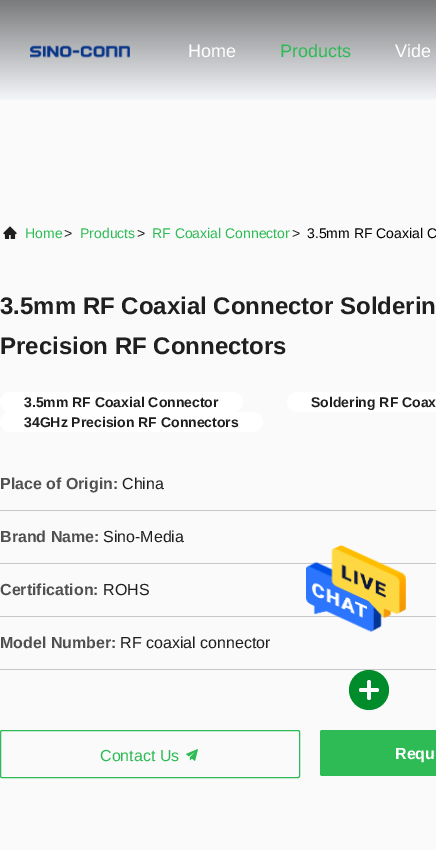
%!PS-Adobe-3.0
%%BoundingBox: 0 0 436 850
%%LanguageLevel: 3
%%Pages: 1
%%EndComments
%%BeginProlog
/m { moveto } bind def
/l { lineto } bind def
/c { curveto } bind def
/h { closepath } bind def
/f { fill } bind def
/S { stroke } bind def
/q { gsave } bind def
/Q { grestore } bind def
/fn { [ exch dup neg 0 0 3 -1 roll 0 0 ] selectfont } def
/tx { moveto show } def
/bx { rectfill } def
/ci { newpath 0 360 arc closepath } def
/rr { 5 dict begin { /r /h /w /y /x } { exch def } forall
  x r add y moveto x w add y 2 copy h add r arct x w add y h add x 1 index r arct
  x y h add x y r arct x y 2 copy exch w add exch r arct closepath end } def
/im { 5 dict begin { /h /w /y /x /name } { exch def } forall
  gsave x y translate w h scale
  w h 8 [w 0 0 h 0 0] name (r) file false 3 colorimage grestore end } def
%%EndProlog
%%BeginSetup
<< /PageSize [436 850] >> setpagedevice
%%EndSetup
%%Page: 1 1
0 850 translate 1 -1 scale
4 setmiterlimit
0.98 setgray
0 0 436 850 bx
q 0 0 m 436 0 l 436 100 l 0 100 l h clip newpath
<< /ShadingType 2 /ColorSpace /DeviceRGB /Coords [218 0 218 100] /Extend [true true] /Function << /FunctionType 2 /Domain [0 1] /C0 [0.478 0.482 0.49] /C1 [0.957 0.965 0.976] /N 1 >> >> shfill Q
(image0.raw) 30 45 100 13 im
/LiberationSans-Regular 18 fn
1 setgray
(Home) 188 57 tx
0.18 0.733 0.333 setrgbcolor
(Products) 280 57 tx
1 setgray
(Vide) 395 57 tx
(image1.raw) 3 226 14 13 im
/LiberationSans-Regular 14 fn
0.18 0.733 0.333 setrgbcolor
(Home) 25 238 tx
0.122 setgray
(>) 64 238 tx
0.18 0.733 0.333 setrgbcolor
(Products) 80 238 tx
0.122 setgray
(>) 137 238 tx
0.18 0.733 0.333 setrgbcolor
(RF Coaxial Connector) 152 238 tx
0.122 setgray
(>) 292 238 tx
0 setgray
(3.5mm RF Coaxial C) 307 238 tx
/LiberationSans-Bold 24 fn
0.122 setgray
(3.5mm RF Coaxial Connector Solderin) 0 314 tx
(Precision RF Connectors) 0 354 tx
1 setgray
0 392 243 20 10 rr f
/LiberationSans-Bold 14 fn
0.122 setgray
(3.5mm RF Coaxial Connector) 24 407 tx
1 setgray
297 392 m 436 392 l 436 412 l 297 412 l 291.5 412 287 407.5 287 402 c 287 396.5 291.5 392 297 392 c h f
0.122 setgray
(Soldering RF Coax) 311 407 tx
1 setgray
0 412 263 20 10 rr f
0.122 setgray
(34GHz Precision RF Connectors) 24 427 tx
0.784 setgray
0 510 436 1 bx
/LiberationSans-Bold 16 fn
0.314 setgray
(Place of Origin:) 0 489 tx
/LiberationSans-Regular 16 fn
0.122 setgray
(China) 122 489 tx
0.784 setgray
0 563 436 1 bx
/LiberationSans-Bold 16 fn
0.314 setgray
(Brand Name:) 0 542 tx
/LiberationSans-Regular 16 fn
0.122 setgray
(Sino-Media) 103 542 tx
0.784 setgray
0 616 436 1 bx
/LiberationSans-Bold 16 fn
0.314 setgray
(Certification:) 0 595 tx
/LiberationSans-Regular 16 fn
0.122 setgray
(ROHS) 103 595 tx
0.784 setgray
0 669 436 1 bx
/LiberationSans-Bold 16 fn
0.314 setgray
(Model Number:) 0 648 tx
/LiberationSans-Regular 16 fn
0.122 setgray
(RF coaxial connector) 120 648 tx
0.18 0.733 0.333 setrgbcolor
0.5 730.5 299 47 1.5 rr S
(Contact Us) 100 761 tx
(image2.raw) 186 749 12 12 im
322 730 m 436 730 l 436 776 l 322 776 l 321 776 320 775 320 774 c 320 732 l 320 731 321 730 322 730 c h f
/LiberationSans-Bold 16 fn
1 setgray
(Requ) 395 759 tx
(image3.raw) 306 545 100 87 im
0 0.549 0.165 setrgbcolor
369 690 20 ci f
1 setgray
359 688 20 4 2 rr f
371 682 m 371 698 l 371 699 370 700 369 700 c 368 700 367 699 367 698 c 367 682 l 367 681 368 680 369 680 c 370 680 371 681 371 682 c h f
showpage
%%EOF
